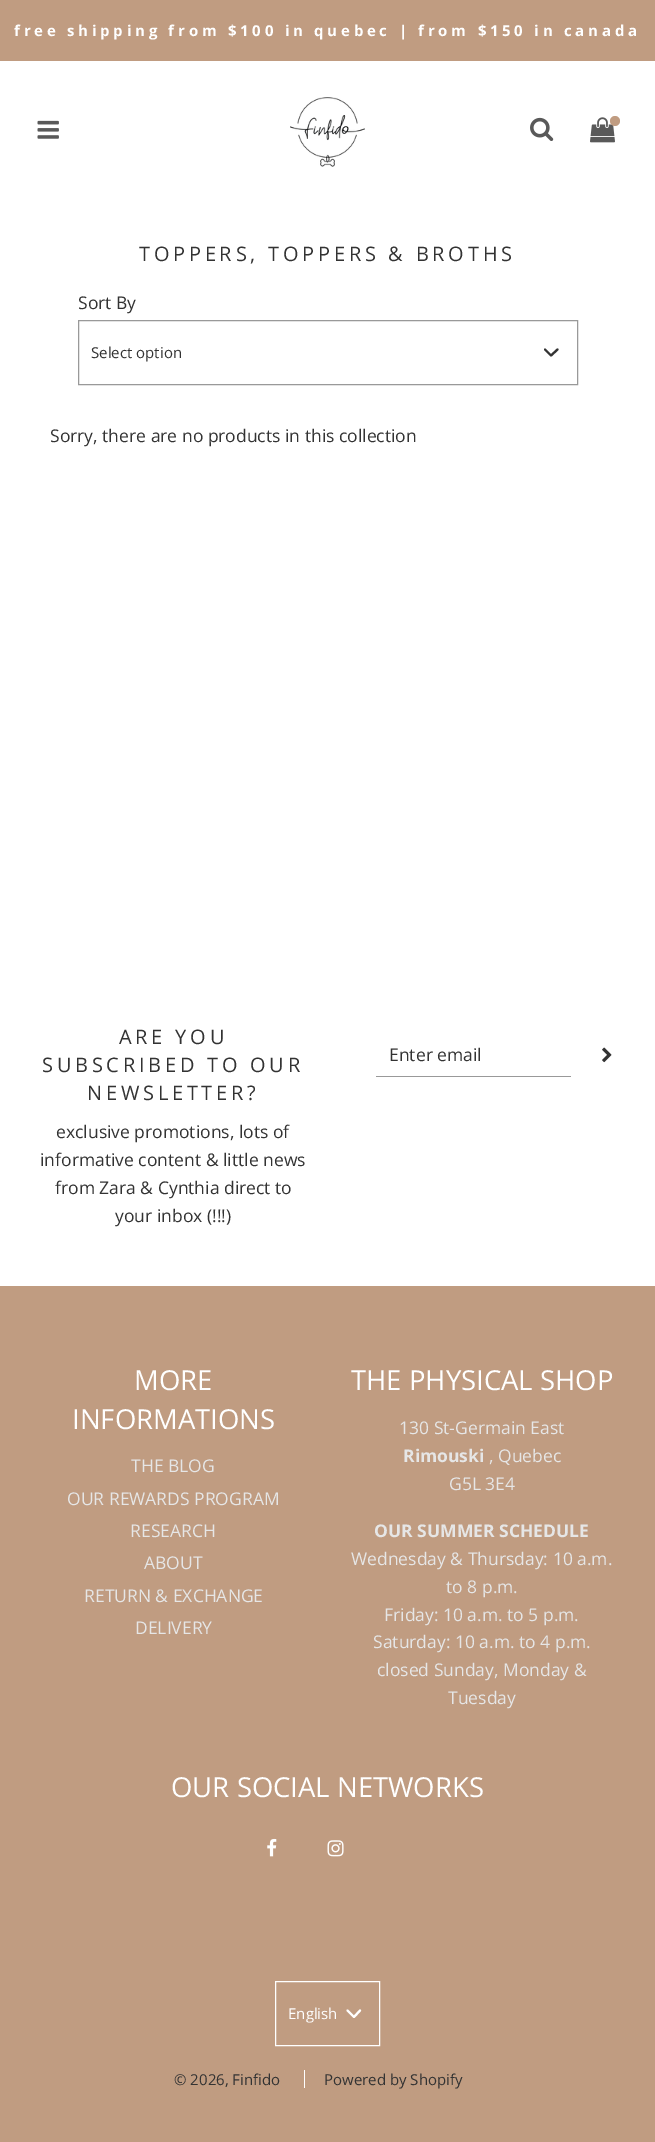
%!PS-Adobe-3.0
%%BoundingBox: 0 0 655 2142
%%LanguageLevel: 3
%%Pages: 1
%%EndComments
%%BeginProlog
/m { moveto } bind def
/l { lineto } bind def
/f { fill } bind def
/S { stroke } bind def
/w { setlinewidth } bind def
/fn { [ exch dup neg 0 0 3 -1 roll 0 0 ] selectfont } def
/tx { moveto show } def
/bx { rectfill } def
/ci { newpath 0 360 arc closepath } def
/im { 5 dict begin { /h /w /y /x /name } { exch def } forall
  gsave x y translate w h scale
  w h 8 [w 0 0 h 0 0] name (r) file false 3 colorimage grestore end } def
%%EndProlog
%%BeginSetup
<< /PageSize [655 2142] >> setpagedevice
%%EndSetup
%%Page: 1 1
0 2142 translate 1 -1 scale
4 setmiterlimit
1 setgray
0 0 655 2142 bx
0.753 0.612 0.506 setrgbcolor
0 0 655 61 bx
/OpenSans-Bold 15 fn
1 setgray
14 36 m 3.75 0 (free shipping from $100 in quebec | from $150 in canada) ashow
(image0.raw) 37 120 22 19 im
(image1.raw) 290 97 75 70 im
(image2.raw) 530 117 24 24 im
(image3.raw) 590 117 25 26 im
0.753 0.612 0.506 setrgbcolor
615 121 5 ci f
/OpenSans-Regular 20 fn
0.2 setgray
139 261 m 3.75 0 (TOPPERS, TOPPERS & BROTHS) ashow
/OpenSans-Regular 17.5 fn
(Sort By) 78 309 tx
0.6 setgray
78.5 320.5 499 64 rectstroke
/OpenSans-Regular 15 fn
0.2 setgray
(Select option) 91 358 tx
2.1 w
1 setlinecap
1 setlinejoin
545 349.5 m 551 355.5 l 557.5 349.5 l S
/OpenSans-Regular 17.5 fn
(Sorry, there are no products in this collection) 50 442 tx
/OpenSans-Regular 20 fn
119 1044 m 3.75 0 (ARE YOU) ashow
42 1072 m 3.75 0 (SUBSCRIBED TO OUR) ashow
87 1100 m 3.75 0 (NEWSLETTER?) ashow
/OpenSans-Regular 17.5 fn
(exclusive promotions, lots of) 56 1138 tx
(informative content & little news) 40 1166 tx
(from Zara & Cynthia direct to) 55 1194 tx
(your inbox \(!!!\)) 115 1222 tx
0.6 setgray
376 1076 195 1 bx
0.2 setgray
(Enter email) 389 1061 tx
(image4.raw) 602 1047 10 16 im
0.753 0.612 0.506 setrgbcolor
0 1286 655 856 bx
/OpenSans-Regular 27.5 fn
1 setgray
(MORE) 134 1390 tx
(INFORMATIONS) 72 1429 tx
/OpenSans-Regular 17.5 fn
0.902 setgray
(THE BLOG) 131 1472 tx
(OUR REWARDS PROGRAM) 67 1505 tx
(RESEARCH) 130 1537 tx
(ABOUT) 144 1569 tx
(RETURN & EXCHANGE) 84 1602 tx
(DELIVERY) 135 1634 tx
/OpenSans-Regular 27.5 fn
1 setgray
(THE PHYSICAL SHOP) 351 1390 tx
/OpenSans-Regular 17.5 fn
0.902 setgray
(130 St-Germain East) 399 1434 tx
/OpenSans-Bold 17.5 fn
(Rimouski) 403 1462 tx
/OpenSans-Regular 17.5 fn
(, Quebec) 489 1462 tx
(G5L 3E4) 449 1490 tx
/OpenSans-Bold 17.5 fn
(OUR SUMMER SCHEDULE) 374 1537 tx
/OpenSans-Regular 17.5 fn
(Wednesday & Thursday: 10 a.m.) 351 1565 tx
(to 8 p.m.) 446 1593 tx
(Friday: 10 a.m. to 5 p.m.) 384 1621 tx
(Saturday: 10 a.m. to 4 p.m.) 373 1648 tx
(closed Sunday, Monday &) 377 1676 tx
(Tuesday) 448 1704 tx
/OpenSans-Regular 27.5 fn
1 setgray
(OUR SOCIAL NETWORKS) 171 1797 tx
(image5.raw) 267 1838 10 19 im
(image6.raw) 327 1840 17 17 im
1 w
0 setlinecap
0 setlinejoin
275.5 1981.5 104 64 rectstroke
/OpenSans-Regular 15 fn
(English) 288 2019 tx
2.1 w
1 setlinecap
1 setlinejoin
347.5 2010.5 m 354 2017 l 360 2010.5 l S
0.2 setgray
(© 2026, Finfido) 174 2085 tx
1 setgray
304 2070 1 18 bx
0.2 setgray
(Powered by Shopify) 324 2085 tx
showpage
%%EOF
